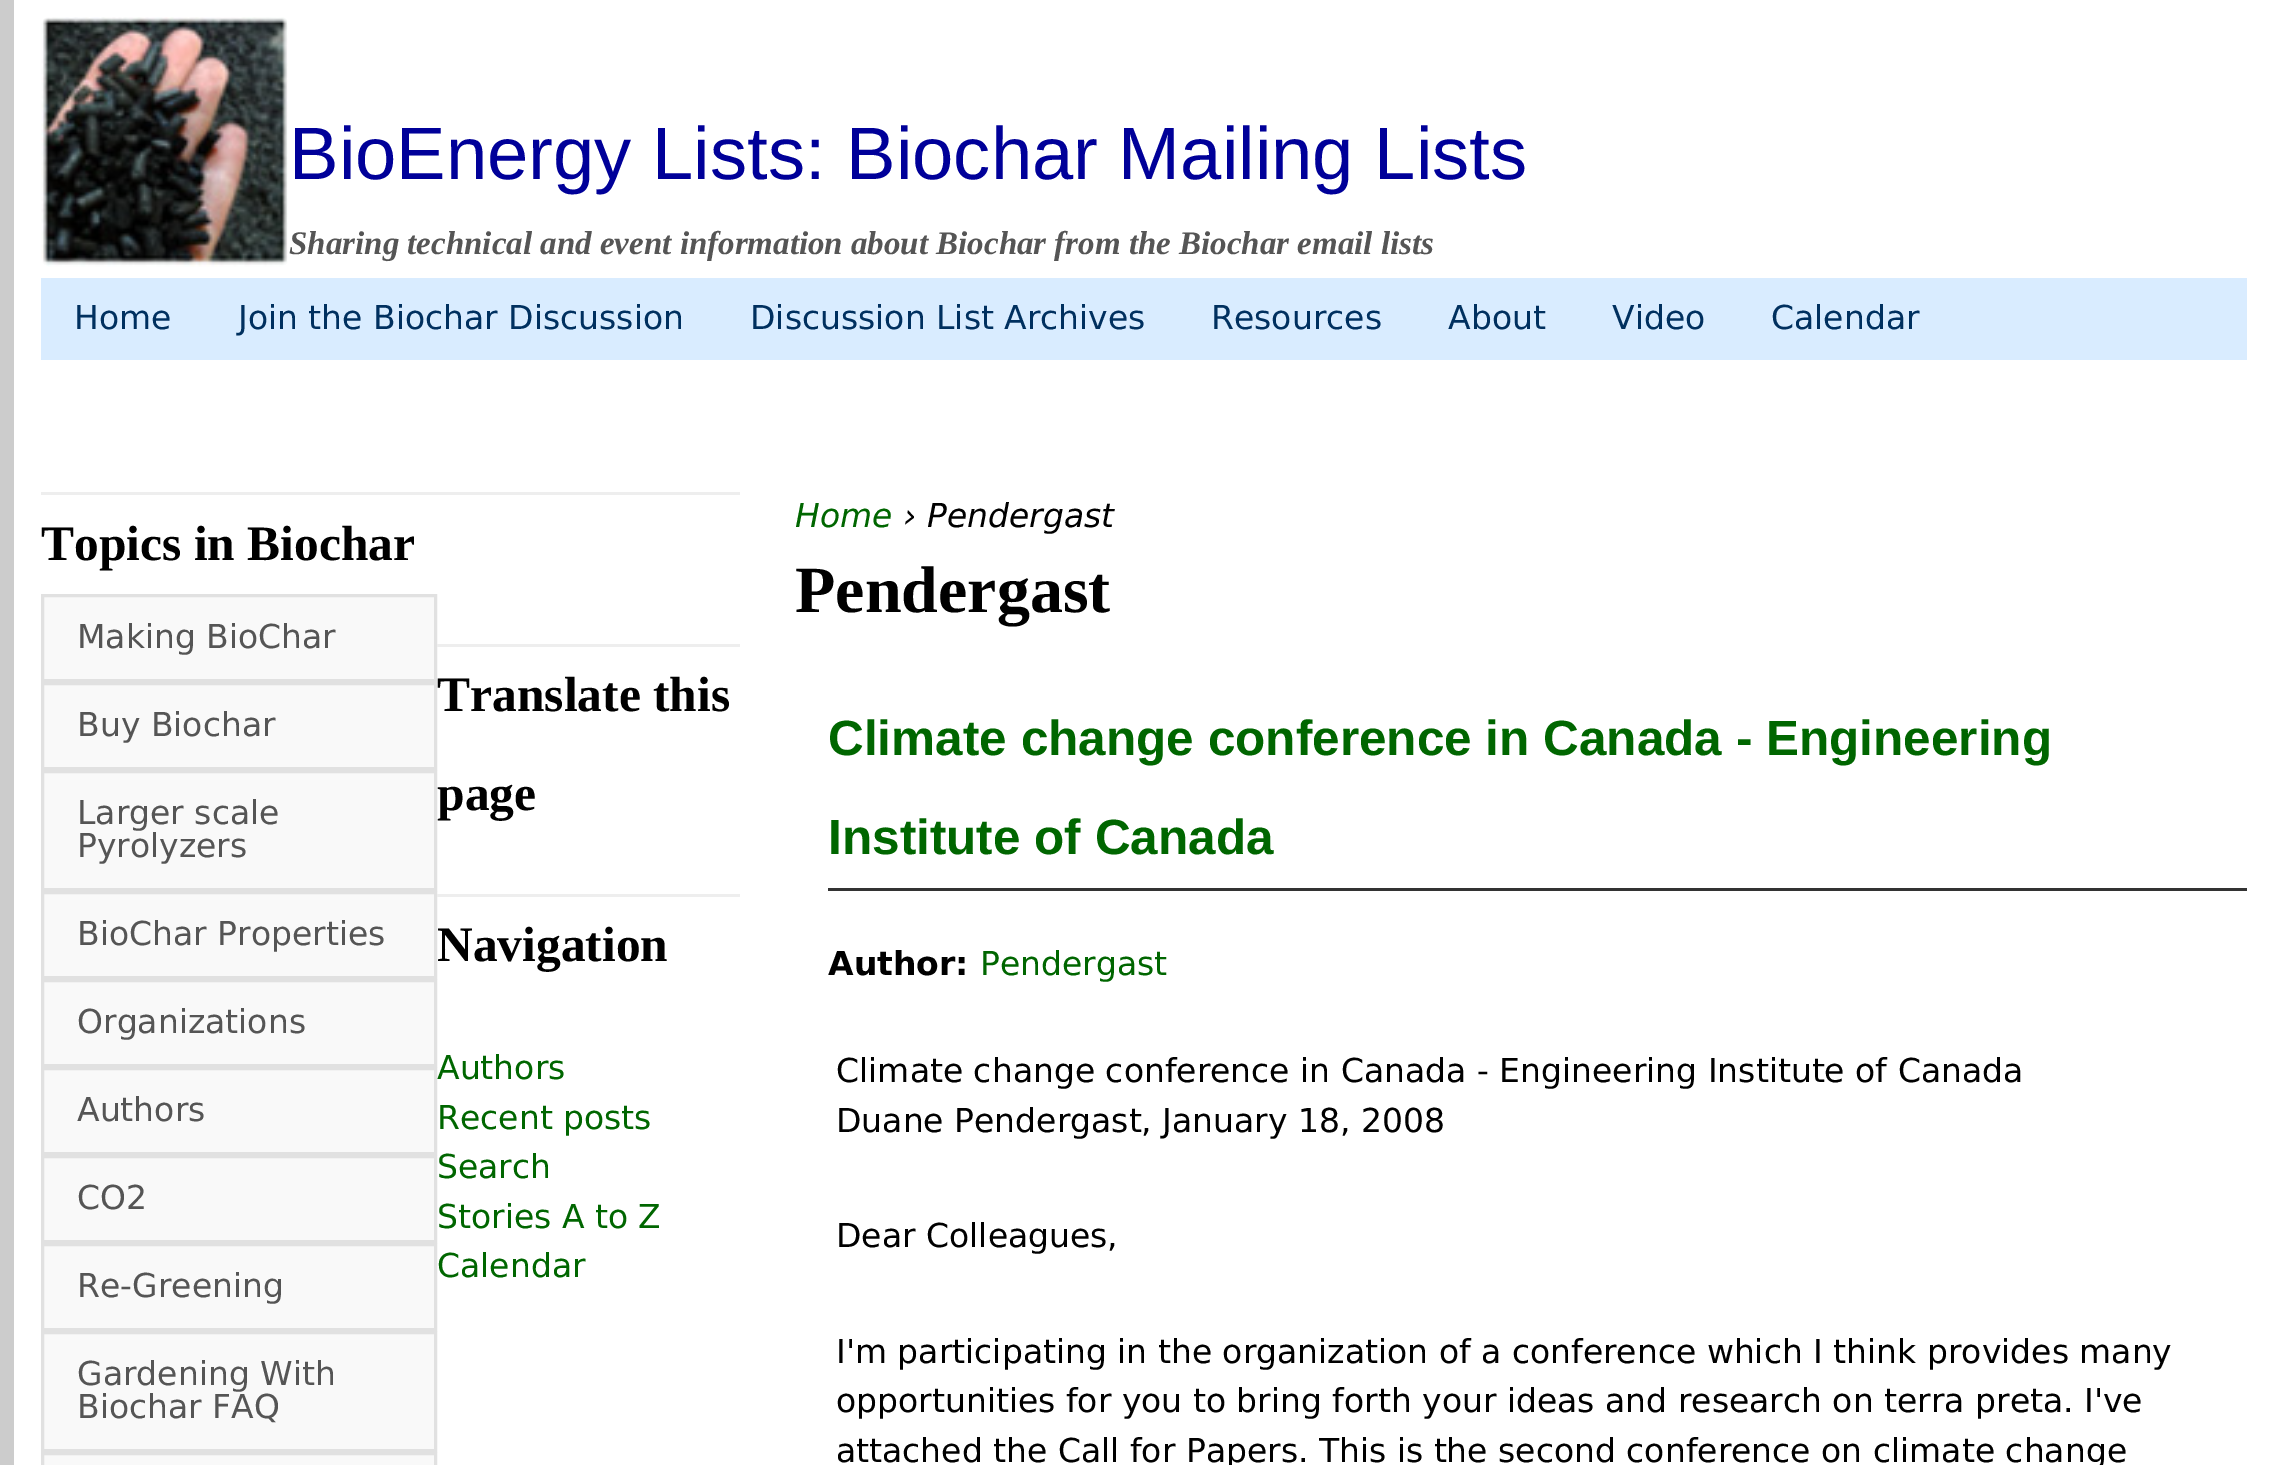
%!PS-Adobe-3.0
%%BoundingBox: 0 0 2272 1465
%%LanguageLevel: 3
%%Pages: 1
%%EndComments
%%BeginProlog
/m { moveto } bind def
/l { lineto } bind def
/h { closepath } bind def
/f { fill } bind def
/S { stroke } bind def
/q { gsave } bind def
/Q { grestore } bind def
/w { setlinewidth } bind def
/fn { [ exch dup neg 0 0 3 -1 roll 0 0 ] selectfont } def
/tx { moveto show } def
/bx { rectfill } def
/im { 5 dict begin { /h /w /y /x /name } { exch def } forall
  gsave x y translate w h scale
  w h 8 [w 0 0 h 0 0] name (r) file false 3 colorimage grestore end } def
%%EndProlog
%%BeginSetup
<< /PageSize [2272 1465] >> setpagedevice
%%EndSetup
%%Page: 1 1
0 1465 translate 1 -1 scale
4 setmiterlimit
1 setgray
0 0 2272 1465 bx
0.8 setgray
0 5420 m 0 0 l 14 0 l 14 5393 l h f
(image0.raw) 41 17 247 250 im
/LiberationSans-Regular 74.25 fn
0 0 0.6 setrgbcolor
(BioEnergy Lists: Biochar Mailing Lists) 289 179 tx
/LiberationSerif-BoldItalic 33 fn
0.333 setgray
(Sharing technical and event information about Biochar from the Biochar email lists) 289 254 tx
0.851 0.925 1 setrgbcolor
41 278 2206 82 bx
/DejaVuSans-Regular 33 fn
0 0.188 0.373 setrgbcolor
(Home) 74 329 tx
(Join the Biochar Discussion) 238 329 tx
(Discussion List Archives) 750 329 tx
(Resources) 1211 329 tx
(About) 1448 329 tx
(Video) 1612 329 tx
(Calendar) 1771 329 tx
0.933 setgray
41 492 699 3 bx
/LiberationSerif-Bold 49.5 fn
0 setgray
(Topics in Biochar) 41 560 tx
0.976 setgray
42.5 595.5 m 435.5 595.5 l 435.5 680.5 l 42.5 680.5 l h q f Q
0.882 setgray
3 w
S
/DejaVuSans-Regular 33 fn
0.333 setgray
(Making BioChar) 77 648 tx
0.976 setgray
42.5 683.5 m 435.5 683.5 l 435.5 768.5 l 42.5 768.5 l h q f Q
0.882 setgray
S
0.333 setgray
(Buy Biochar) 77 736 tx
0.976 setgray
42.5 771.5 m 435.5 771.5 l 435.5 889.5 l 42.5 889.5 l h q f Q
0.882 setgray
S
0.333 setgray
(Larger scale) 77 824 tx
(Pyrolyzers) 77 857 tx
0.976 setgray
42.5 892.5 m 435.5 892.5 l 435.5 977.5 l 42.5 977.5 l h q f Q
0.882 setgray
S
0.333 setgray
(BioChar Properties) 77 945 tx
0.976 setgray
42.5 980.5 m 435.5 980.5 l 435.5 1065.5 l 42.5 1065.5 l h q f Q
0.882 setgray
S
0.333 setgray
(Organizations) 77 1033 tx
0.976 setgray
42.5 1068.5 m 435.5 1068.5 l 435.5 1153.5 l 42.5 1153.5 l h q f Q
0.882 setgray
S
0.333 setgray
(Authors) 77 1121 tx
0.976 setgray
42.5 1156.5 m 435.5 1156.5 l 435.5 1241.5 l 42.5 1241.5 l h q f Q
0.882 setgray
S
0.333 setgray
(CO2) 77 1209 tx
0.976 setgray
42.5 1244.5 m 435.5 1244.5 l 435.5 1329.5 l 42.5 1329.5 l h q f Q
0.882 setgray
S
0.333 setgray
(Re-Greening) 77 1297 tx
0.976 setgray
42.5 1332.5 m 435.5 1332.5 l 435.5 1450.5 l 42.5 1450.5 l h q f Q
0.882 setgray
S
0.333 setgray
(Gardening With) 77 1385 tx
(Biochar FAQ) 77 1418 tx
0.976 setgray
42.5 1453.5 m 435.5 1453.5 l 435.5 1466.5 l 42.5 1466.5 l h q f Q
0.882 setgray
S
0.933 setgray
437 644 303 3 bx
/LiberationSerif-Bold 49.5 fn
0 setgray
(Translate this) 437 711 tx
(page) 437 810 tx
0.933 setgray
437 894 303 3 bx
0 setgray
(Navigation) 437 961 tx
/DejaVuSans-Regular 33 fn
0 0.4 0 setrgbcolor
(Authors) 437 1079 tx
(Recent posts) 437 1129 tx
(Search) 437 1178 tx
(Stories A to Z) 437 1228 tx
(Calendar) 437 1277 tx
/DejaVuSans-Italic 33 fn
(Home) 795 527 tx
0 setgray
(› Pendergast) 903 527 tx
/LiberationSerif-Bold 66 fn
(Pendergast) 795 612 tx
0.2 setgray
828 888 1419 3 bx
/LiberationSans-Bold 49.5 fn
0 0.4 0 setrgbcolor
(Climate change conference in Canada - Engineering) 828 755 tx
(Institute of Canada) 828 854 tx
/DejaVuSans-Bold 33 fn
0 setgray
(Author:) 828 975 tx
/DejaVuSans-Regular 33 fn
0 0.4 0 setrgbcolor
(Pendergast) 980 975 tx
0 setgray
(Climate change conference in Canada - Engineering Institute of Canada) 836 1082 tx
(Duane Pendergast, January 18, 2008) 836 1132 tx
(Dear Colleagues,) 836 1247 tx
(I'm participating in the organization of a conference which I think provides many) 836 1363 tx
(opportunities for you to bring forth your ideas and research on terra preta. I've) 836 1412 tx
(attached the Call for Papers. This is the second conference on climate change) 836 1462 tx
showpage
%%EOF
